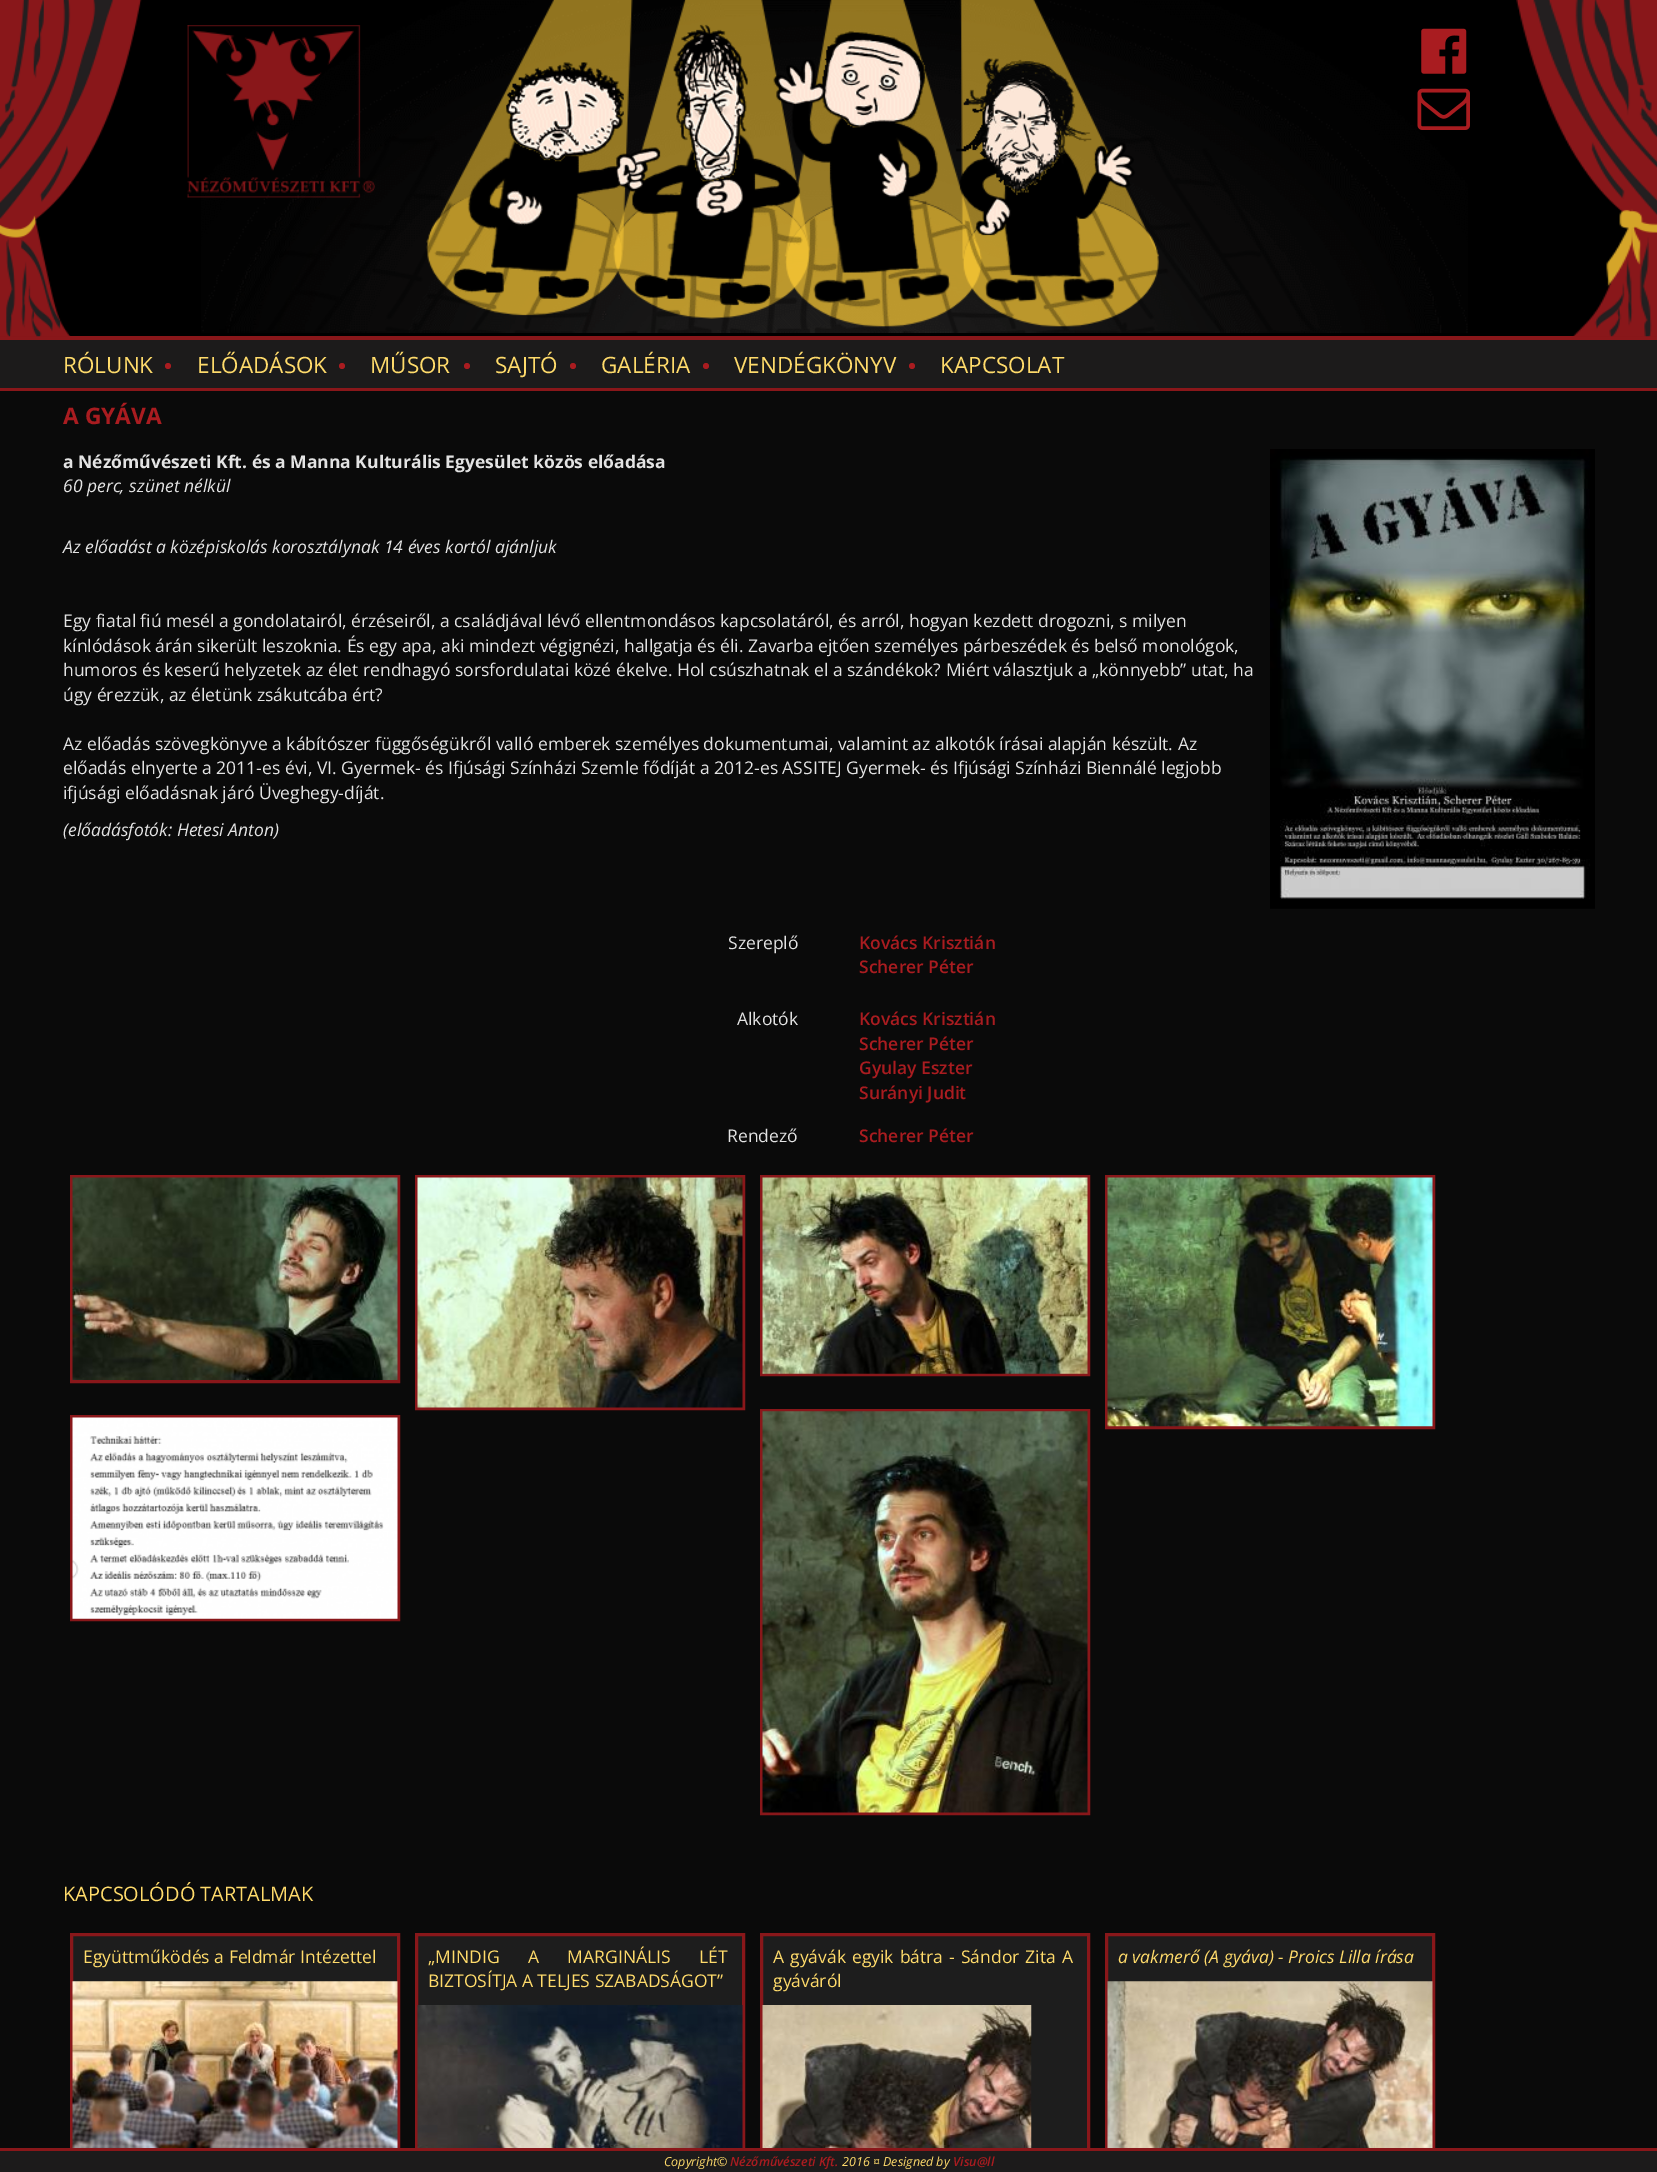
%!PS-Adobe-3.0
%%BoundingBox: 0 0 1657 2172
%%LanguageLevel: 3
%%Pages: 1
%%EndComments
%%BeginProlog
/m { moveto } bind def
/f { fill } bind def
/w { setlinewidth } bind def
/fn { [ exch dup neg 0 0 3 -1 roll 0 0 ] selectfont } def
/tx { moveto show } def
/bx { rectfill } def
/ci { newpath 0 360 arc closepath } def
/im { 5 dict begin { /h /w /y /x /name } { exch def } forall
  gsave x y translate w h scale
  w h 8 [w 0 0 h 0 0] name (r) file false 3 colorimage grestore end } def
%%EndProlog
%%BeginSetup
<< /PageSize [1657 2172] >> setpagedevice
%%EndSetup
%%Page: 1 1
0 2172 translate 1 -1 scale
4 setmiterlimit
0.039 setgray
0 0 1657 2172 bx
0 setgray
34 0 1595 336 bx
(image2.raw) 201 0 1267 333 im
(image0.raw) 187 25 188 173 im
0.537 0.09 0.102 setrgbcolor
0 336 1657 4 bx
(image1.raw) 0 0 142 337 im
(image3.raw) 1516 0 141 337 im
(image4.raw) 1421 28 46 46 im
(image5.raw) 1417 88 53 42 im
0.11 0.106 0.106 setrgbcolor
0 340 1657 48 bx
0.537 0.09 0.102 setrgbcolor
0 388 1657 3 bx
/OpenSans-Regular 22.5 fn
1 0.859 0.42 setrgbcolor
(RÓLUNK) 63 373 tx
0.663 0.11 0.125 setrgbcolor
168 366 3 ci f
1 0.859 0.42 setrgbcolor
(ELŐADÁSOK) 197 373 tx
0.663 0.11 0.125 setrgbcolor
342 366 3 ci f
1 0.859 0.42 setrgbcolor
(MŰSOR) 370 373 tx
0.663 0.11 0.125 setrgbcolor
467 366 3 ci f
1 0.859 0.42 setrgbcolor
(SAJTÓ) 495 373 tx
0.663 0.11 0.125 setrgbcolor
573 366 3 ci f
1 0.859 0.42 setrgbcolor
(GALÉRIA) 601 373 tx
0.663 0.11 0.125 setrgbcolor
706 366 3 ci f
1 0.859 0.42 setrgbcolor
(VENDÉGKÖNYV) 734 373 tx
0.663 0.11 0.125 setrgbcolor
912 366 3 ci f
1 0.859 0.42 setrgbcolor
(KAPCSOLAT) 940 373 tx
/OpenSans-Bold 22.75 fn
0.663 0.11 0.125 setrgbcolor
(A GYÁVA) 63 424 tx
/OpenSans-Bold 17.5 fn
0.89 setgray
(a Nézőművészeti Kft. és a Manna Kulturális Egyesület közös előadása) 63 468 tx
/OpenSans-Italic 17.5 fn
(60 perc, szünet nélkül) 63 492 tx
(Az előadást a középiskolás korosztálynak 14 éves kortól ajánljuk) 63 553 tx
/OpenSans-Regular 17.5 fn
(Egy fiatal fiú mesél a gondolatairól, érzéseiről, a családjával lévő ellentmondásos kapcsolatáról, és arról, hogyan kezdett drogozni, s milyen) 63 627 tx
(kínlódások árán sikerült leszoknia. És egy apa, aki mindezt végignézi, hallgatja és éli. Zavarba ejtően személyes párbeszédek és belső monológok,) 63 652 tx
(humoros és keserű helyzetek az élet rendhagyó sorsfordulatai közé ékelve. Hol csúszhatnak el a szándékok? Miért választjuk a „könnyebb” utat, ha) 63 676 tx
(úgy érezzük, az életünk zsákutcába ért?) 63 701 tx
(Az előadás szövegkönyve a kábítószer függőségükről valló emberek személyes dokumentumai, valamint az alkotók írásai alapján készült. Az) 63 750 tx
(előadás elnyerte a 2011-es évi, VI. Gyermek- és Ifjúsági Színházi Szemle fődíját a 2012-es ASSITEJ Gyermek- és Ifjúsági Színházi Biennálé legjobb) 63 774 tx
(ifjúsági előadásnak járó Üveghegy-díját.) 63 799 tx
/OpenSans-Italic 17.5 fn
(\(előadásfotók: Hetesi Anton\)) 63 836 tx
(image6.raw) 1270 449 325 460 im
/OpenSans-Regular 17.5 fn
(Szereplő) 728 949 tx
/OpenSans-SemiBold 17.5 fn
0.663 0.11 0.125 setrgbcolor
(Kovács Krisztián) 859 949 tx
(Scherer Péter) 859 973 tx
/OpenSans-Regular 17.5 fn
0.89 setgray
(Alkotók) 737 1025 tx
/OpenSans-SemiBold 17.5 fn
0.663 0.11 0.125 setrgbcolor
(Kovács Krisztián) 859 1025 tx
(Scherer Péter) 859 1050 tx
(Gyulay Eszter) 859 1074 tx
(Surányi Judit) 859 1099 tx
/OpenSans-Regular 17.5 fn
0.89 setgray
(Rendező) 727 1142 tx
/OpenSans-SemiBold 17.5 fn
0.663 0.11 0.125 setrgbcolor
(Scherer Péter) 859 1142 tx
0.537 0.09 0.102 setrgbcolor
3 w
71.5 1176.5 327 205 rectstroke
(image7.raw) 72 1177 326 203 im
416.5 1176.5 327 232 rectstroke
(image8.raw) 417 1177 326 231 im
761.5 1176.5 327 198 rectstroke
(image9.raw) 762 1177 326 197 im
1106.5 1176.5 327 251 rectstroke
(image10.raw) 1107 1177 326 250 im
71.5 1416.5 327 203 rectstroke
(image11.raw) 72 1417 326 202 im
761.5 1410.5 327 403 rectstroke
(image12.raw) 762 1411 326 402 im
/OpenSans-Regular 20 fn
1 0.859 0.42 setrgbcolor
(KAPCSOLÓDÓ TARTALMAK) 63 1901 tx
0.114 setgray
73 1936 324 46 bx
0.537 0.09 0.102 setrgbcolor
71.5 1934.5 327 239 rectstroke
/OpenSans-Regular 17.5 fn
1 0.859 0.42 setrgbcolor
(Együttműködés a Feldmár Intézettel) 83 1963 tx
(image13.raw) 72 1981 326 167 im
0.114 setgray
418 1936 324 69 bx
0.537 0.09 0.102 setrgbcolor
416.5 1934.5 327 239 rectstroke
1 0.859 0.42 setrgbcolor
428 1963 m 24 0 32 („MINDIG A MARGINÁLIS LÉT) widthshow
(BIZTOSÍTJA A TELJES SZABADSÁGOT”) 428 1987 tx
(image14.raw) 417 2005 326 143 im
0.114 setgray
763 1936 324 212 bx
0.537 0.09 0.102 setrgbcolor
761.5 1934.5 327 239 rectstroke
1 0.859 0.42 setrgbcolor
773 1963 m 1.5 0 32 (A gyávák egyik bátra - Sándor Zita A) widthshow
(gyáváról) 773 1987 tx
(image15.raw) 762 2005 270 143 im
0.114 setgray
1108 1936 324 46 bx
0.537 0.09 0.102 setrgbcolor
1106.5 1934.5 327 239 rectstroke
/OpenSans-Italic 17.5 fn
1 0.859 0.42 setrgbcolor
(a vakmerő \(A gyáva\) - Proics Lilla írása) 1118 1963 tx
(image16.raw) 1107 1981 326 167 im
0.11 0.106 0.106 setrgbcolor
0 2151 1657 21 bx
0.537 0.09 0.102 setrgbcolor
0 2148 1657 3 bx
/OpenSans-Italic 12.5 fn
1 0.859 0.42 setrgbcolor
(Copyright©) 664 2166 tx
/OpenSans-SemiBoldItalic 12.5 fn
0.663 0.11 0.125 setrgbcolor
(Nézőművészeti Kft.) 730 2166 tx
/OpenSans-Italic 12.5 fn
1 0.859 0.42 setrgbcolor
(2016 ¤ Designed by) 842 2166 tx
/OpenSans-SemiBoldItalic 12.5 fn
0.663 0.11 0.125 setrgbcolor
(Visu@ll) 953 2166 tx
showpage
%%EOF
